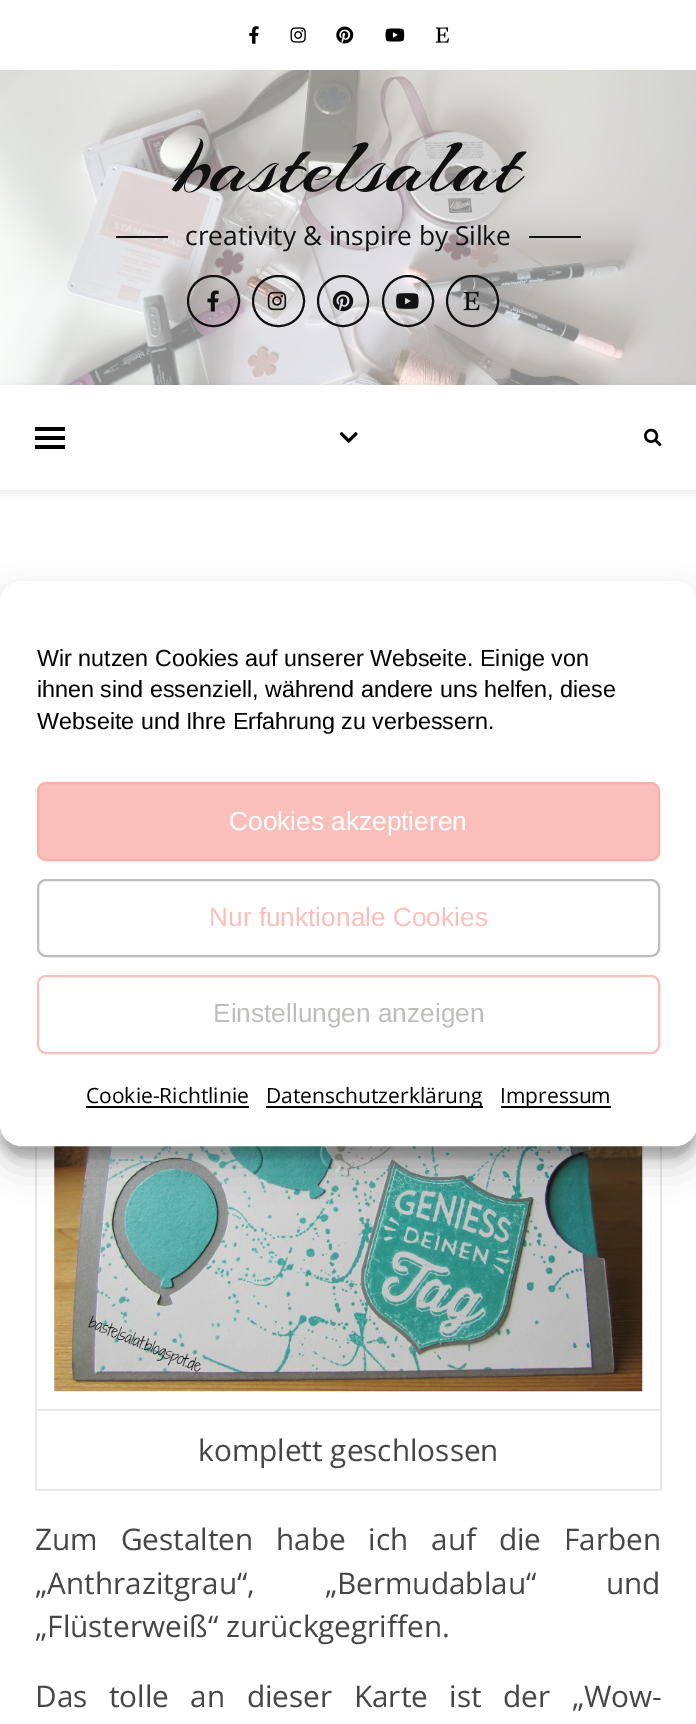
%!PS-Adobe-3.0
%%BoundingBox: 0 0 696 1724
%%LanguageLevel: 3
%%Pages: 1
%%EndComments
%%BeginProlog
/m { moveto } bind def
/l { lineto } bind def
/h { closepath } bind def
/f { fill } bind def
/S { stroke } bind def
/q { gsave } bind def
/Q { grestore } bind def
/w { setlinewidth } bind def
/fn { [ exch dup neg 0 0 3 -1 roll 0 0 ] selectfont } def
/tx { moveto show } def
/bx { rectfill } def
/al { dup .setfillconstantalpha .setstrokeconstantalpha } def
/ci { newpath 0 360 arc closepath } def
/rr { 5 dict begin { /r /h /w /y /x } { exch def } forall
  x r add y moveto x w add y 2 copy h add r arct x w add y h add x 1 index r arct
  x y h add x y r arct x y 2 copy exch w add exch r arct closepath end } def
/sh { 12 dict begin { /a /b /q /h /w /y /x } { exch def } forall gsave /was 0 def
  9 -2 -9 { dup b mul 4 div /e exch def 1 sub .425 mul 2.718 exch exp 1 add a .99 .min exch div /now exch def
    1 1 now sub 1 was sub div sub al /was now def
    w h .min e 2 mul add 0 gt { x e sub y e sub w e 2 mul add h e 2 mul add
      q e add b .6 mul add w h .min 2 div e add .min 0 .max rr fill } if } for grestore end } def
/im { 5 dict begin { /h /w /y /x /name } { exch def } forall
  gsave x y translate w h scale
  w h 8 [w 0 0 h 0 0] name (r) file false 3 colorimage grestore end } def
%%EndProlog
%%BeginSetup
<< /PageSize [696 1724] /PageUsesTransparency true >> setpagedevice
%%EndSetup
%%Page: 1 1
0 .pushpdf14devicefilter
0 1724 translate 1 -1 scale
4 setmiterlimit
1 setgray
0 0 696 1724 bx
(image0.raw) 249 26 10 18 im
(image1.raw) 290 27 16 16 im
(image2.raw) 336 26 18 18 im
(image3.raw) 385 28 20 14 im
(image4.raw) 435 27 14 16 im
(image5.raw) 0 70 696 315 im
/Arizonia-Regular 87.5 fn
0.067 setgray
(bastelsalat) 176 191 tx
116 236 52 2 bx
/OpenSans-Regular 26.25 fn
(creativity & inspire by Silke) 185 245 tx
529 236 52 2 bx
2 w
188 276 51 50 25 rr S
(image6.raw) 207 290 12 22 im
253 276 51 50 25 rr S
(image7.raw) 267 291 20 20 im
343 301 25 ci S
(image8.raw) 332 290 22 22 im
408 301 25 ci S
(image9.raw) 396 293 23 16 im
447 276 51 50 25 rr S
(image10.raw) 463 291 17 20 im
q
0 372 m 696 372 l 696 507 l 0 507 l h 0 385 m 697 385 l 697 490 l 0 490 l h eoclip newpath
0 setgray
0 387 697 105 0 4.5 0.1 sh
Q
0 setgray
35 427 30 4 bx
35 436 30 4 bx
35 445 30 4 bx
(image11.raw) 339 432 19 11 im
(image12.raw) 644 428 18 19 im
(image13.raw) 54 1146 589 246 im
0.91 setgray
35 1409 627 2 bx
660 1146 2 345 bx
35 1489 627 2 bx
35 1146 2 345 bx
/OpenSans-Regular 29.75 fn
0.275 setgray
(komplett geschlossen) 198 1461 tx
35 1550 m 15 0 32 (Zum Gestalten habe ich auf die Farben) widthshow
35 1594 m 62 0 32 („Anthrazitgrau“, „Bermudablau“ und) widthshow
(„Flüsterweiß“ zurückgegriffen.) 35 1637 tx
35 1707 m 13.75 0 32 (Das tolle an dieser Karte ist der „Wow-) widthshow
0 setgray
0 592 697 565 21 5 0.23 sh
0 599 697 565 21 17.5 0.19 sh
1 setgray
1 582 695 563 20 rr q f Q
S
/LiberationSans-Regular 23.3 fn
0 setgray
(Wir nutzen Cookies auf unserer Webseite. Einige von) 37 666 tx
(ihnen sind essenziell, während andere uns helfen, diese) 37 697 tx
(Webseite und Ihre Erfahrung zu verbessern.) 37 729 tx
0.98 0.749 0.729 setrgbcolor
38 783 621 77 8 rr q f Q
0.984 0.686 0.671 setrgbcolor
S
/LiberationSans-Regular 26.25 fn
1 setgray
(Cookies akzeptieren) 229 830 tx
0.741 0.741 0.745 setrgbcolor
38 880 621 76 8 rr S
0.98 0.749 0.729 setrgbcolor
(Nur funktionale Cookies) 209 926 tx
38 976 621 77 8 rr S
0.741 0.741 0.733 setrgbcolor
(Einstellungen anzeigen) 213 1022 tx
/OpenSans-Regular 21 fn
0 setgray
(Cookie-Richtlinie) 86 1103 tx
86 1106 163 2 bx
266 1106 217 2 bx
(Datenschutzerklärung) 266 1103 tx
501 1106 110 2 bx
(Impressum) 500 1103 tx
.poppdf14devicefilter showpage
%%EOF
